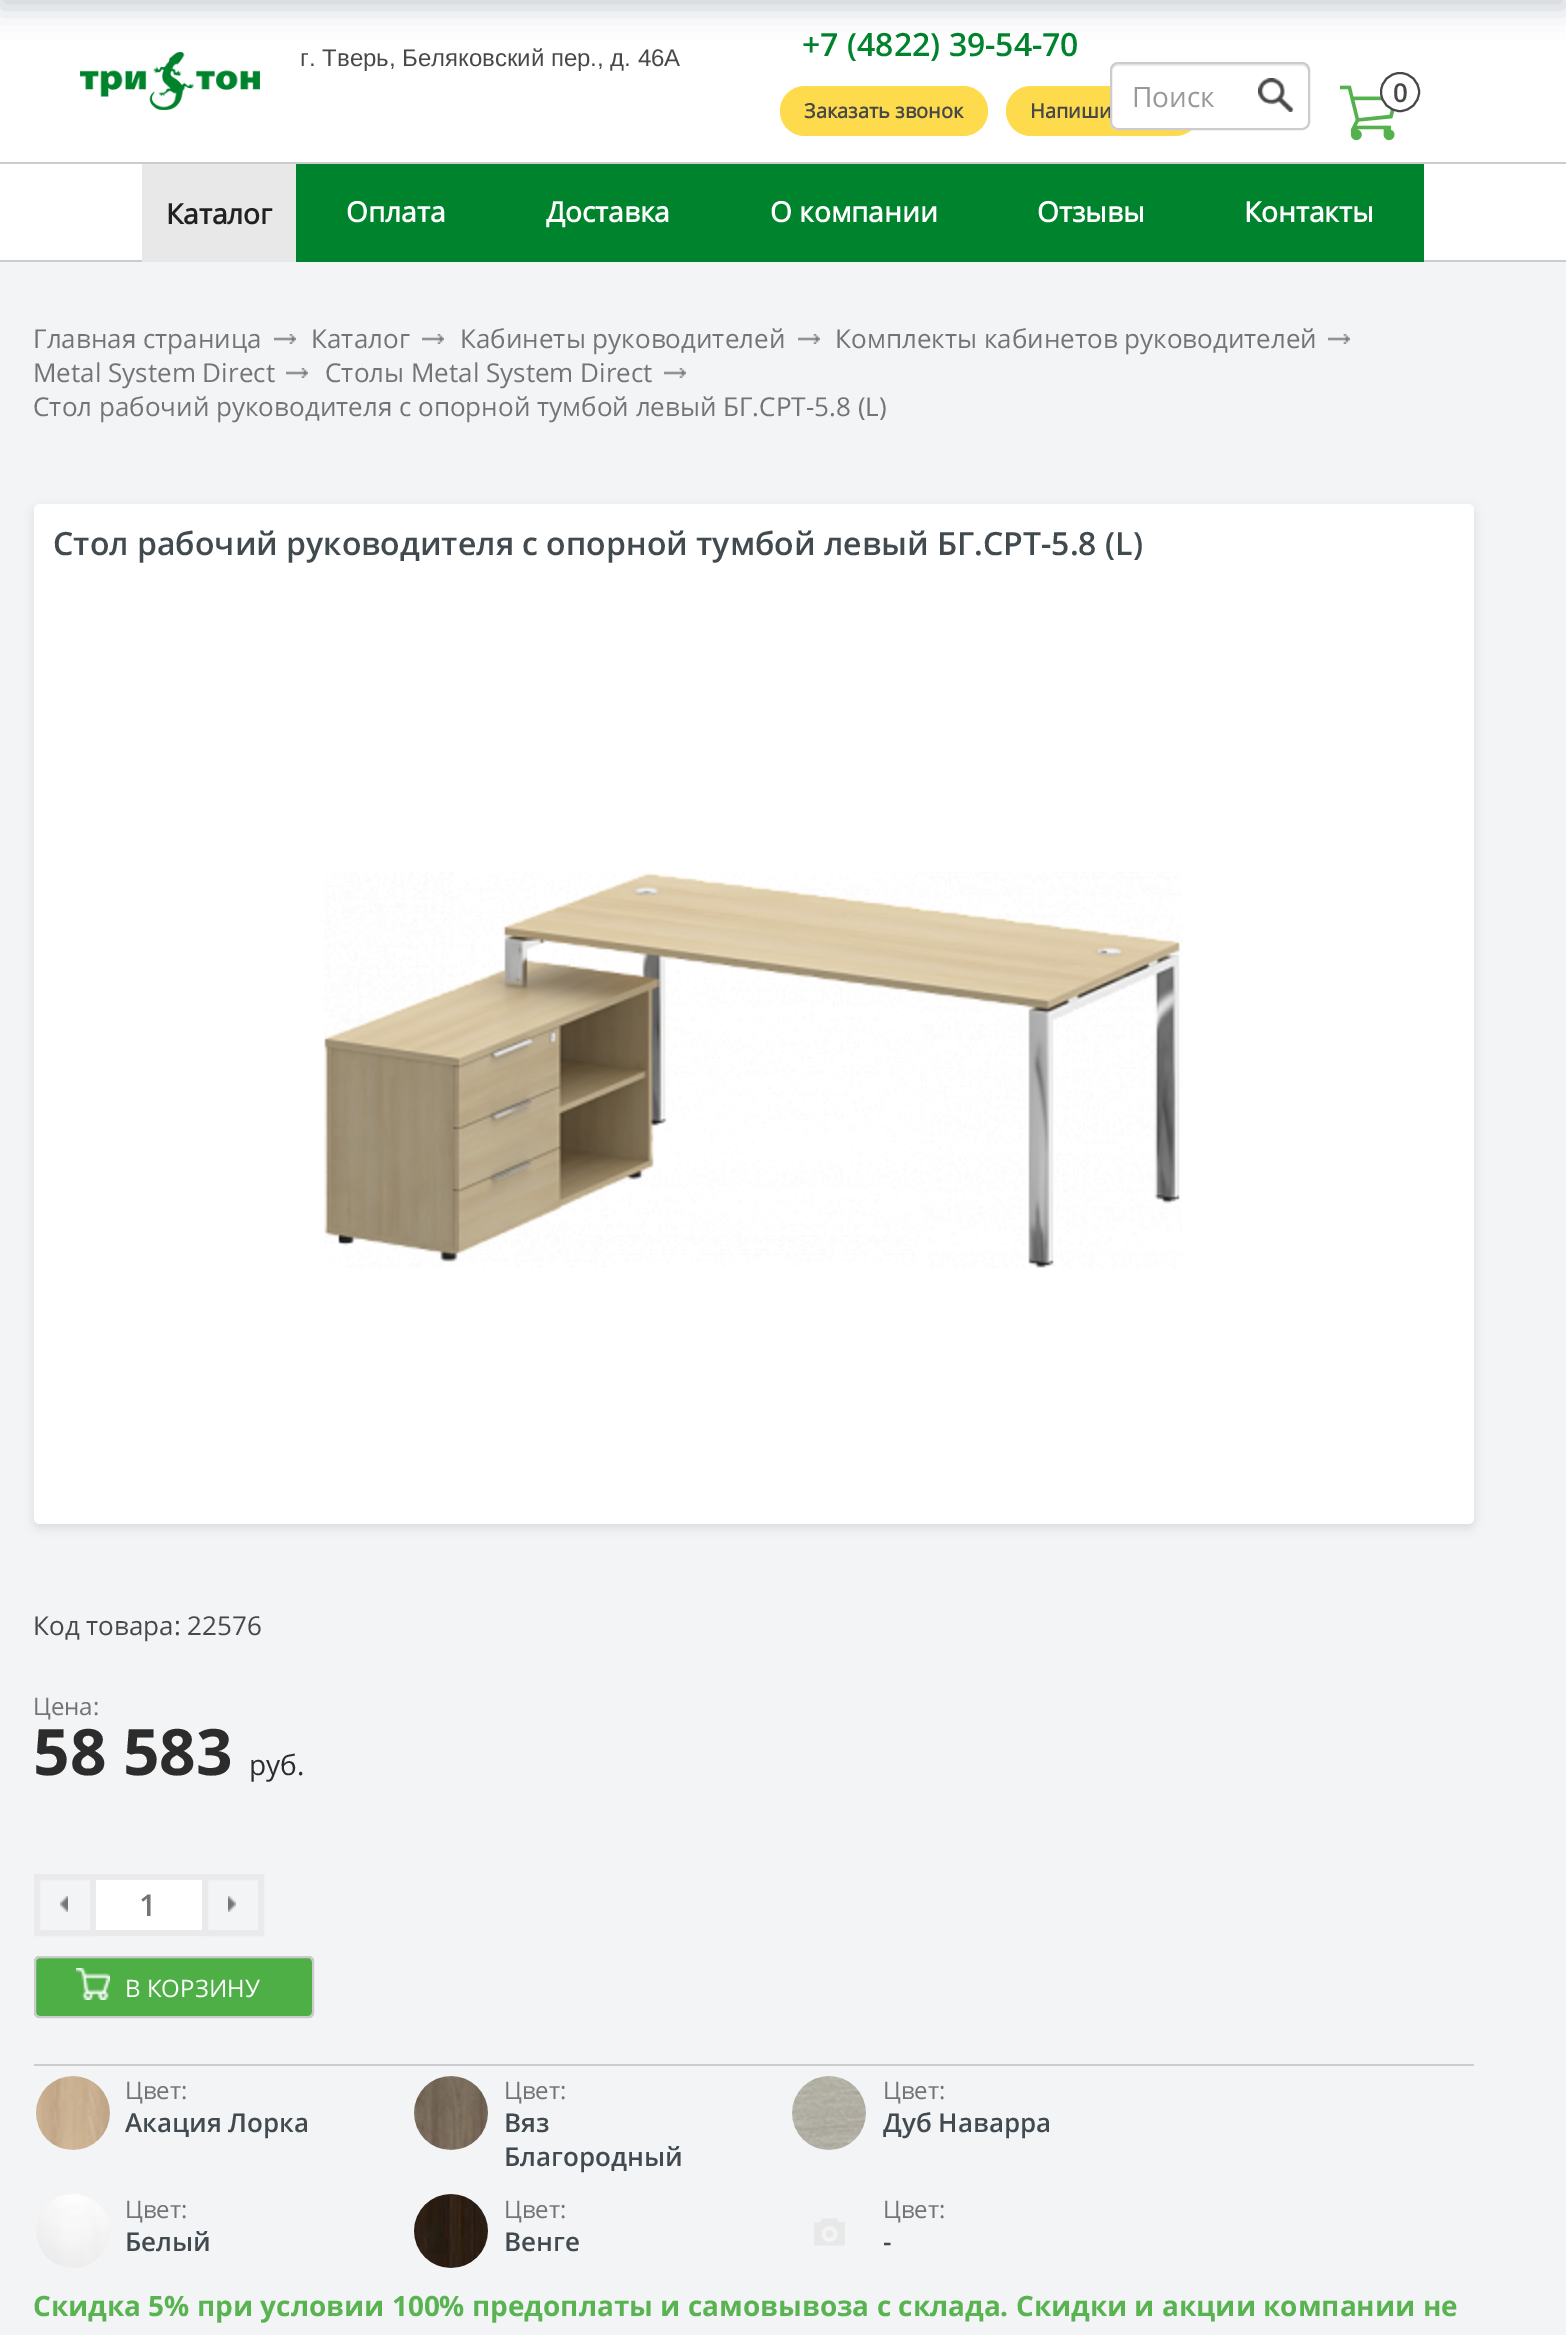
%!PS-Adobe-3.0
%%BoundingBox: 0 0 1566 2335
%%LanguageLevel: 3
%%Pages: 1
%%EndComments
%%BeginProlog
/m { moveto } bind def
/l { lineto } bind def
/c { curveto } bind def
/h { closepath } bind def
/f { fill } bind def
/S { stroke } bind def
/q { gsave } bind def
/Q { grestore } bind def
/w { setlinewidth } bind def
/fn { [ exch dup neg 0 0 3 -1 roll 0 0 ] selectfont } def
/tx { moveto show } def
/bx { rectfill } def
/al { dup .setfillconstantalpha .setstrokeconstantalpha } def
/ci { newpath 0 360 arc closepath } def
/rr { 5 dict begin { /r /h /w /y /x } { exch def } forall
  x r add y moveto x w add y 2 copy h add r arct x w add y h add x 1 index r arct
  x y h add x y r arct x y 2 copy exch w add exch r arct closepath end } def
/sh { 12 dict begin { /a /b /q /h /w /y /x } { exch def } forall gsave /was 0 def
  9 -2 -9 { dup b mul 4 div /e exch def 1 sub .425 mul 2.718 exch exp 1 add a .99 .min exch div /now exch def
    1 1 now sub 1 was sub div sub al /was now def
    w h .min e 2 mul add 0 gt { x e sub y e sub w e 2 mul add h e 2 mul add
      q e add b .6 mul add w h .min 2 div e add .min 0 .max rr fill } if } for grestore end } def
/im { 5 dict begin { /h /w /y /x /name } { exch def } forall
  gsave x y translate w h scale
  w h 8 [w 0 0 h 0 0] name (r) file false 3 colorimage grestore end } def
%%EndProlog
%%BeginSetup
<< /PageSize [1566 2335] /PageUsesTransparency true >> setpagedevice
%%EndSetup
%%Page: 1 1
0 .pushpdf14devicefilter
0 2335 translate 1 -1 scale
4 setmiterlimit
0.953 0.957 0.965 setrgbcolor
0 0 1566 2335 bx
1 setgray
0 0 1566 162 bx
(image0.raw) 80 52 180 58 im
/LiberationSans-Regular 24 fn
0.282 setgray
(г. Тверь, Беляковский пер., д. 46А) 300 66 tx
/OpenSans-SemiBold 32 fn
0 0.514 0.176 setrgbcolor
(+7 \(4822\) 39-54-70) 802 56 tx
0.996 0.855 0.302 setrgbcolor
780 86 208 50 25 rr f
/OpenSans-Bold 20 fn
0.282 setgray
(Заказать звонок) 804 118 tx
0.996 0.855 0.302 setrgbcolor
1006 86 194 50 25 rr f
0.282 setgray
(Напиши) 1030 118 tx
1 setgray
1110 62 200 68 8 rr f
(image1.raw) 1258 78 36 34 im
0.925 setgray
1118 66 m 1302 66 l 1305 66 1308 69 1308 72 c 1308 70 l 1308 67 1305 64 1302 64 c 1118 64 l 1115 64 1112 67 1112 70 c 1112 72 l 1112 69 1115 66 1118 66 c h f
0.8 setgray
2 w
1111 63 198 66 7 rr S
/OpenSans-Regular 28 fn
0.6 setgray
(Поиск) 1132 107 tx
(image2.raw) 1340 85 55 56 im
1 setgray
1400 92 19 ci q f Q
0.282 setgray
S
/OpenSans-SemiBold 26 fn
(0) 1393 102 tx
1 setgray
0 164 1566 96 bx
0.8 setgray
0 162 1566 2 bx
0 260 1566 2 bx
0.91 setgray
142 164 154 98 bx
/OpenSans-Bold 28 fn
0.129 setgray
(Каталог) 166 224 tx
0 0.514 0.176 setrgbcolor
296 164 1128 98 bx
1 0.996 0.996 setrgbcolor
(Оплата) 346 222 tx
(Доставка) 546 222 tx
(О компании) 770 222 tx
(Отзывы) 1037 222 tx
(Контакты) 1244 222 tx
/OpenSans-Regular 26 fn
0.447 0.455 0.459 setrgbcolor
(Главная страница) 33 348 tx
(image3.raw) 274 334 22 10 im
(Каталог) 311 348 tx
(image3.raw) 422 334 22 10 im
(Кабинеты руководителей) 460 348 tx
(image3.raw) 798 334 22 10 im
(Комплекты кабинетов руководителей) 835 348 tx
(image3.raw) 1328 334 22 10 im
(Metal System Direct) 33 382 tx
(image3.raw) 286 368 22 10 im
(Столы Metal System Direct) 325 382 tx
(image3.raw) 664 368 22 10 im
(Стол рабочий руководителя с опорной тумбой левый БГ.СРТ-5.8 \(L\)) 33 416 tx
0.125 0.212 0.29 setrgbcolor
0 -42 1566 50 0 14 0.23 sh
0 setgray
34 508 1440 1020 6 5 0.1 sh
1 setgray
34 504 1440 1020 6 rr f
/OpenSans-SemiBold 32 fn
0.251 0.29 0.31 setrgbcolor
(Стол рабочий руководителя с опорной тумбой левый БГ.СРТ-5.8 \(L\)) 53 555 tx
(image4.raw) 324 872 858 396 im
/OpenSans-Regular 26 fn
0.282 setgray
(Код товара: 22576) 33 1635 tx
/OpenSans-Regular 24 fn
0.447 0.455 0.459 setrgbcolor
(Цена:) 33 1715 tx
/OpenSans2-Bold 64 fn
0.173 setgray
(58 583) 33 1775 tx
/OpenSans-Regular 28 fn
(руб.) 249 1775 tx
0.796 0.8 0.808 setrgbcolor
34 2064 1440 2 bx
(image5.raw) 60 1896 8 16 im
0.918 0.918 0.925 setrgbcolor
6 w
37 1877 56 56 rectstroke
1 setgray
96 1880 106 50 bx
0.918 0.918 0.925 setrgbcolor
96 1874 106 6 bx
96 1930 106 6 bx
/OpenSans-SemiBold 30 fn
0.447 0.455 0.459 setrgbcolor
(1) 139 1916 tx
(image6.raw) 228 1896 8 16 im
0.918 0.918 0.925 setrgbcolor
205 1877 56 56 rectstroke
0.302 0.686 0.271 setrgbcolor
34 1956 280 62 6 rr f
(image7.raw) 76 1968 34 32 im
0.8 setgray
2 w
35 1957 278 60 5 rr S
/OpenSans-Regular 24 fn
1 0.996 0.996 setrgbcolor
(В КОРЗИНУ) 125 1997 tx
(image8.raw) 36 2076 74 74 im
0.447 0.455 0.459 setrgbcolor
(Цвет:) 125 2099 tx
/OpenSans-SemiBold 26 fn
0.251 0.29 0.31 setrgbcolor
(Акация Лорка) 125 2132 tx
(image9.raw) 414 2076 74 74 im
/OpenSans-Regular 24 fn
0.447 0.455 0.459 setrgbcolor
(Цвет:) 504 2099 tx
/OpenSans-SemiBold 26 fn
0.251 0.29 0.31 setrgbcolor
(Вяз) 504 2132 tx
(Благородный) 504 2166 tx
(image10.raw) 792 2076 74 74 im
/OpenSans-Regular 24 fn
0.447 0.455 0.459 setrgbcolor
(Цвет:) 883 2099 tx
/OpenSans-SemiBold 26 fn
0.251 0.29 0.31 setrgbcolor
(Дуб Наварра) 883 2132 tx
(image11.raw) 36 2194 73 74 im
/OpenSans-Regular 24 fn
0.447 0.455 0.459 setrgbcolor
(Цвет:) 125 2218 tx
/OpenSans-SemiBold 26 fn
0.251 0.29 0.31 setrgbcolor
(Белый) 125 2251 tx
(image12.raw) 414 2194 74 74 im
/OpenSans-Regular 24 fn
0.447 0.455 0.459 setrgbcolor
(Цвет:) 504 2218 tx
/OpenSans-SemiBold 26 fn
0.251 0.29 0.31 setrgbcolor
(Венге) 504 2251 tx
/OpenSans-Regular 24 fn
0.447 0.455 0.459 setrgbcolor
(Цвет:) 883 2218 tx
(image13.raw) 814 2218 31 28 im
/OpenSans-SemiBold 26 fn
0.251 0.29 0.31 setrgbcolor
(-) 883 2251 tx
/OpenSans2-Bold 28 fn
0.349 0.702 0.318 setrgbcolor
(Скидка 5% при условии 100% предоплаты и самовывоза с склада. Скидки и акции компании не) 33 2316 tx
.poppdf14devicefilter showpage
%%EOF
